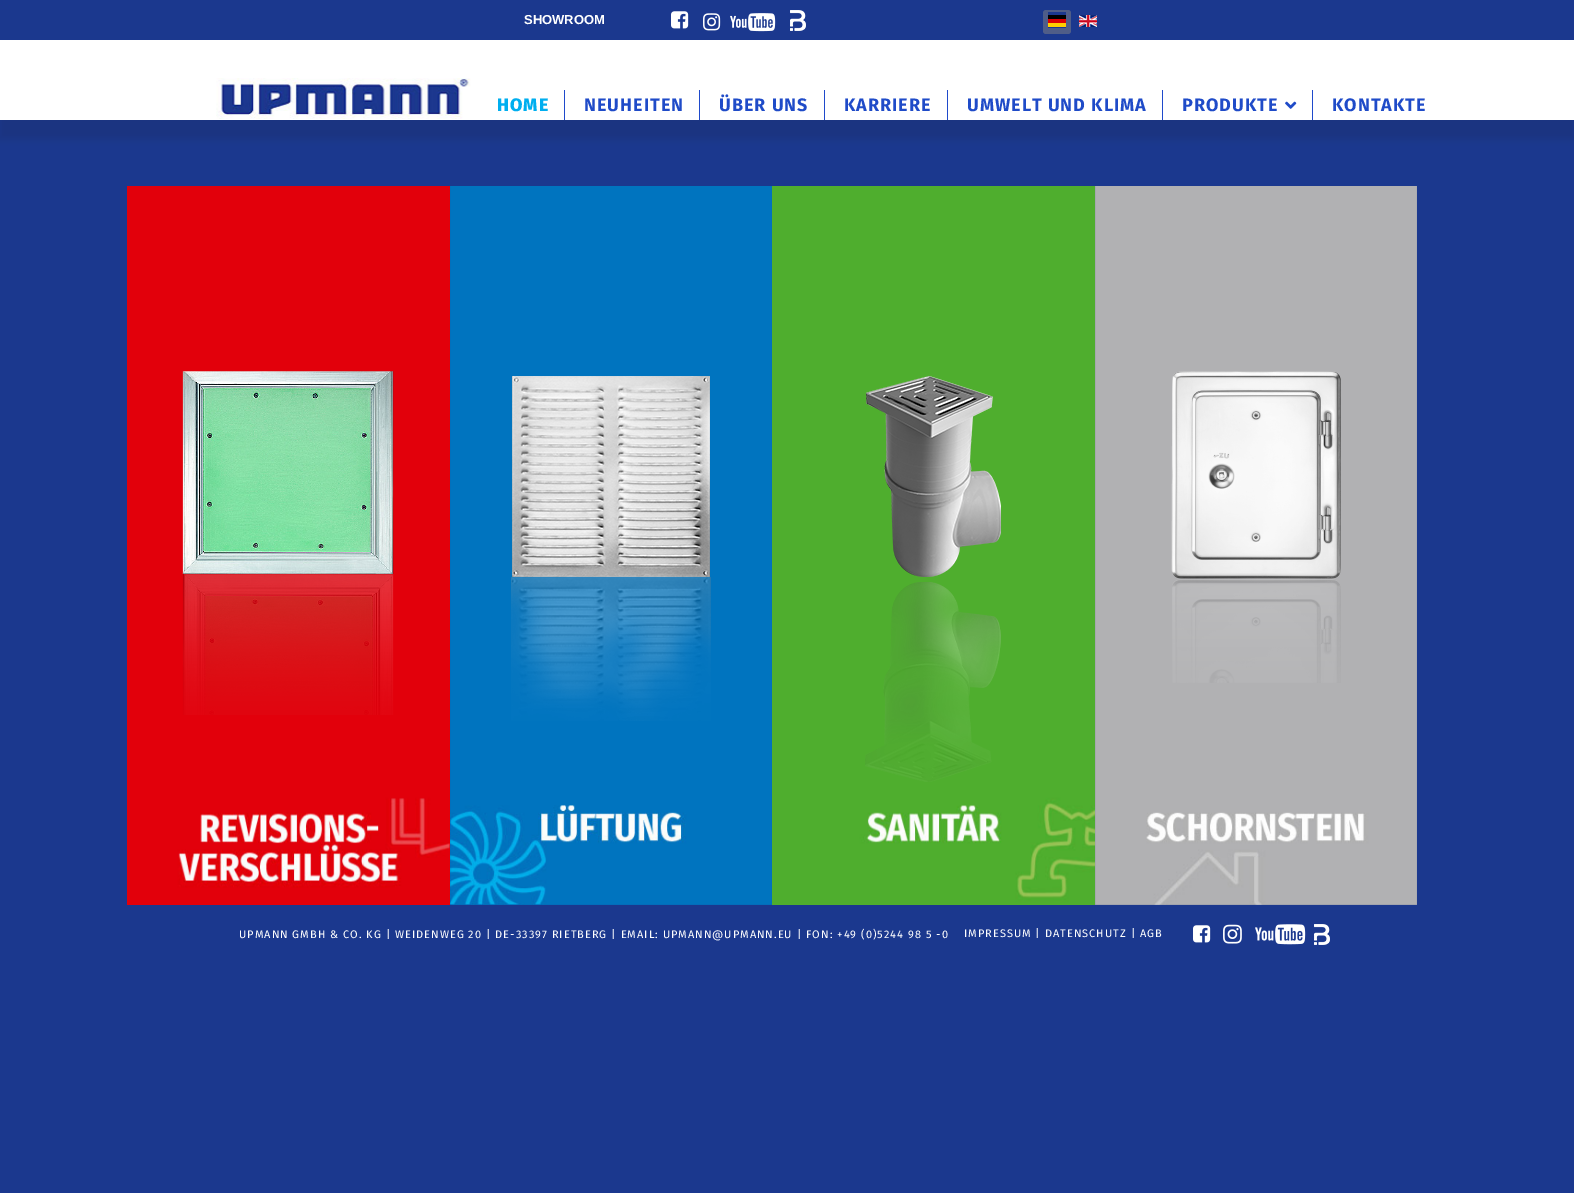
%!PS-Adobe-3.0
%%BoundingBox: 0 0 1574 1193
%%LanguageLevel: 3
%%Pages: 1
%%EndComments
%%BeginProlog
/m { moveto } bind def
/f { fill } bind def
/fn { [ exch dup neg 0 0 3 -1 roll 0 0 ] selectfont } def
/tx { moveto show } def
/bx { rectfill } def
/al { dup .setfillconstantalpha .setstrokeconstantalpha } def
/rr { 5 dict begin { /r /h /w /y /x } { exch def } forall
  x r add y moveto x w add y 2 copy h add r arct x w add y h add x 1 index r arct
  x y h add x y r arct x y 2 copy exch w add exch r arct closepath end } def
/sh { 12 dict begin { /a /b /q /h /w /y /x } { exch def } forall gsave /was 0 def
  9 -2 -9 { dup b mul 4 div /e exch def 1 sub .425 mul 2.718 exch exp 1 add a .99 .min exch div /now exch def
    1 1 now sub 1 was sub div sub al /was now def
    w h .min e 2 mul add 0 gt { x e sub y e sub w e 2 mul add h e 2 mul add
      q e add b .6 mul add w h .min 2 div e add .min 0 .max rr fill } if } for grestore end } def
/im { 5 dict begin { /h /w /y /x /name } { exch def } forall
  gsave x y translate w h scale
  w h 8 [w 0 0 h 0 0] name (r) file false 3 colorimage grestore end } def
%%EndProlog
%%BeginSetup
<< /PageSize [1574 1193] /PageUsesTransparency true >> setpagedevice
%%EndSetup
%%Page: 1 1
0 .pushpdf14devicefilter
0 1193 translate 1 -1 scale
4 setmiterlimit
0.106 0.22 0.557 setrgbcolor
0 0 1574 1193 bx
/LiberationSans-Bold 13 fn
1 setgray
(SHOWROOM) 524 24 tx
(image0.raw) 671 11 18 18 im
(image1.raw) 703 13 18 18 im
(image2.raw) 730 13 46 19 im
(image3.raw) 790 10 16 21 im
0.31 0.365 0.533 setrgbcolor
1043 10 28 24 3 rr f
0.106 0.22 0.557 setrgbcolor
1048 12 18 16 bx
(image4.raw) 1048 15 18 12 im
(image5.raw) 1079 15 18 12 im
0 setgray
-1 57 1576 82 0 3 0.08 sh
1 setgray
0 40 1574 80 bx
(image6.raw) 216 78 262 42 im
/FiraSans-ExtraBold 18 fn
0 0.682 0.937 setrgbcolor
497 111 m 1 0 (HOME) ashow
0.122 0.29 0.796 setrgbcolor
564 90 1 30 bx
/FiraSans-Bold 18 fn
0.122 0.294 0.784 setrgbcolor
584 111 m 1 0 (NEUHEITEN) ashow
0.122 0.29 0.796 setrgbcolor
699 90 1 30 bx
0.122 0.294 0.784 setrgbcolor
719 111 m 1 0 (ÜBER UNS) ashow
0.122 0.29 0.796 setrgbcolor
824 90 1 30 bx
0.122 0.294 0.784 setrgbcolor
844 111 m 1 0 (KARRIERE) ashow
0.122 0.29 0.796 setrgbcolor
947 90 1 30 bx
0.122 0.294 0.784 setrgbcolor
967 111 m 1 0 (UMWELT UND KLIMA) ashow
0.122 0.29 0.796 setrgbcolor
1162 90 1 30 bx
0.122 0.294 0.784 setrgbcolor
1182 111 m 1 0 (PRODUKTE) ashow
(image7.raw) 1285 101 12 8 im
0.122 0.29 0.796 setrgbcolor
1312 90 1 30 bx
0.122 0.294 0.784 setrgbcolor
1332 111 m 1 0 (KONTAKTE) ashow
(image8.raw) 127 186 323 719 im
(image9.raw) 182 371 212 203 im
(image10.raw) 182 574 212 141 im
(image11.raw) 450 186 322 719 im
(image12.raw) 512 376 198 201 im
(image13.raw) 511 577 200 144 im
(image14.raw) 772 186 323 719 im
(image15.raw) 866 376 135 201 im
(image16.raw) 865 582 136 200 im
(image17.raw) 1095 186 322 719 im
(image18.raw) 1171 371 170 208 im
(image19.raw) 1172 579 169 104 im
/FiraSans-Regular 11 fn
1 setgray
239 938 m 1 0 (UPMANN GMBH & CO. KG | WEIDENWEG 20 | DE-33397 RIETBERG | EMAIL: UPMANN@UPMANN.EU | FON: +49 \(0\)5244 98 5 -0) ashow
964 937 m 1 0 (IMPRESSUM | DATENSCHUTZ | AGB) ashow
(image0.raw) 1193 925 18 18 im
(image20.raw) 1223 924 19 20 im
(image21.raw) 1255 924 51 21 im
(image3.raw) 1314 924 16 21 im
.poppdf14devicefilter showpage
%%EOF
